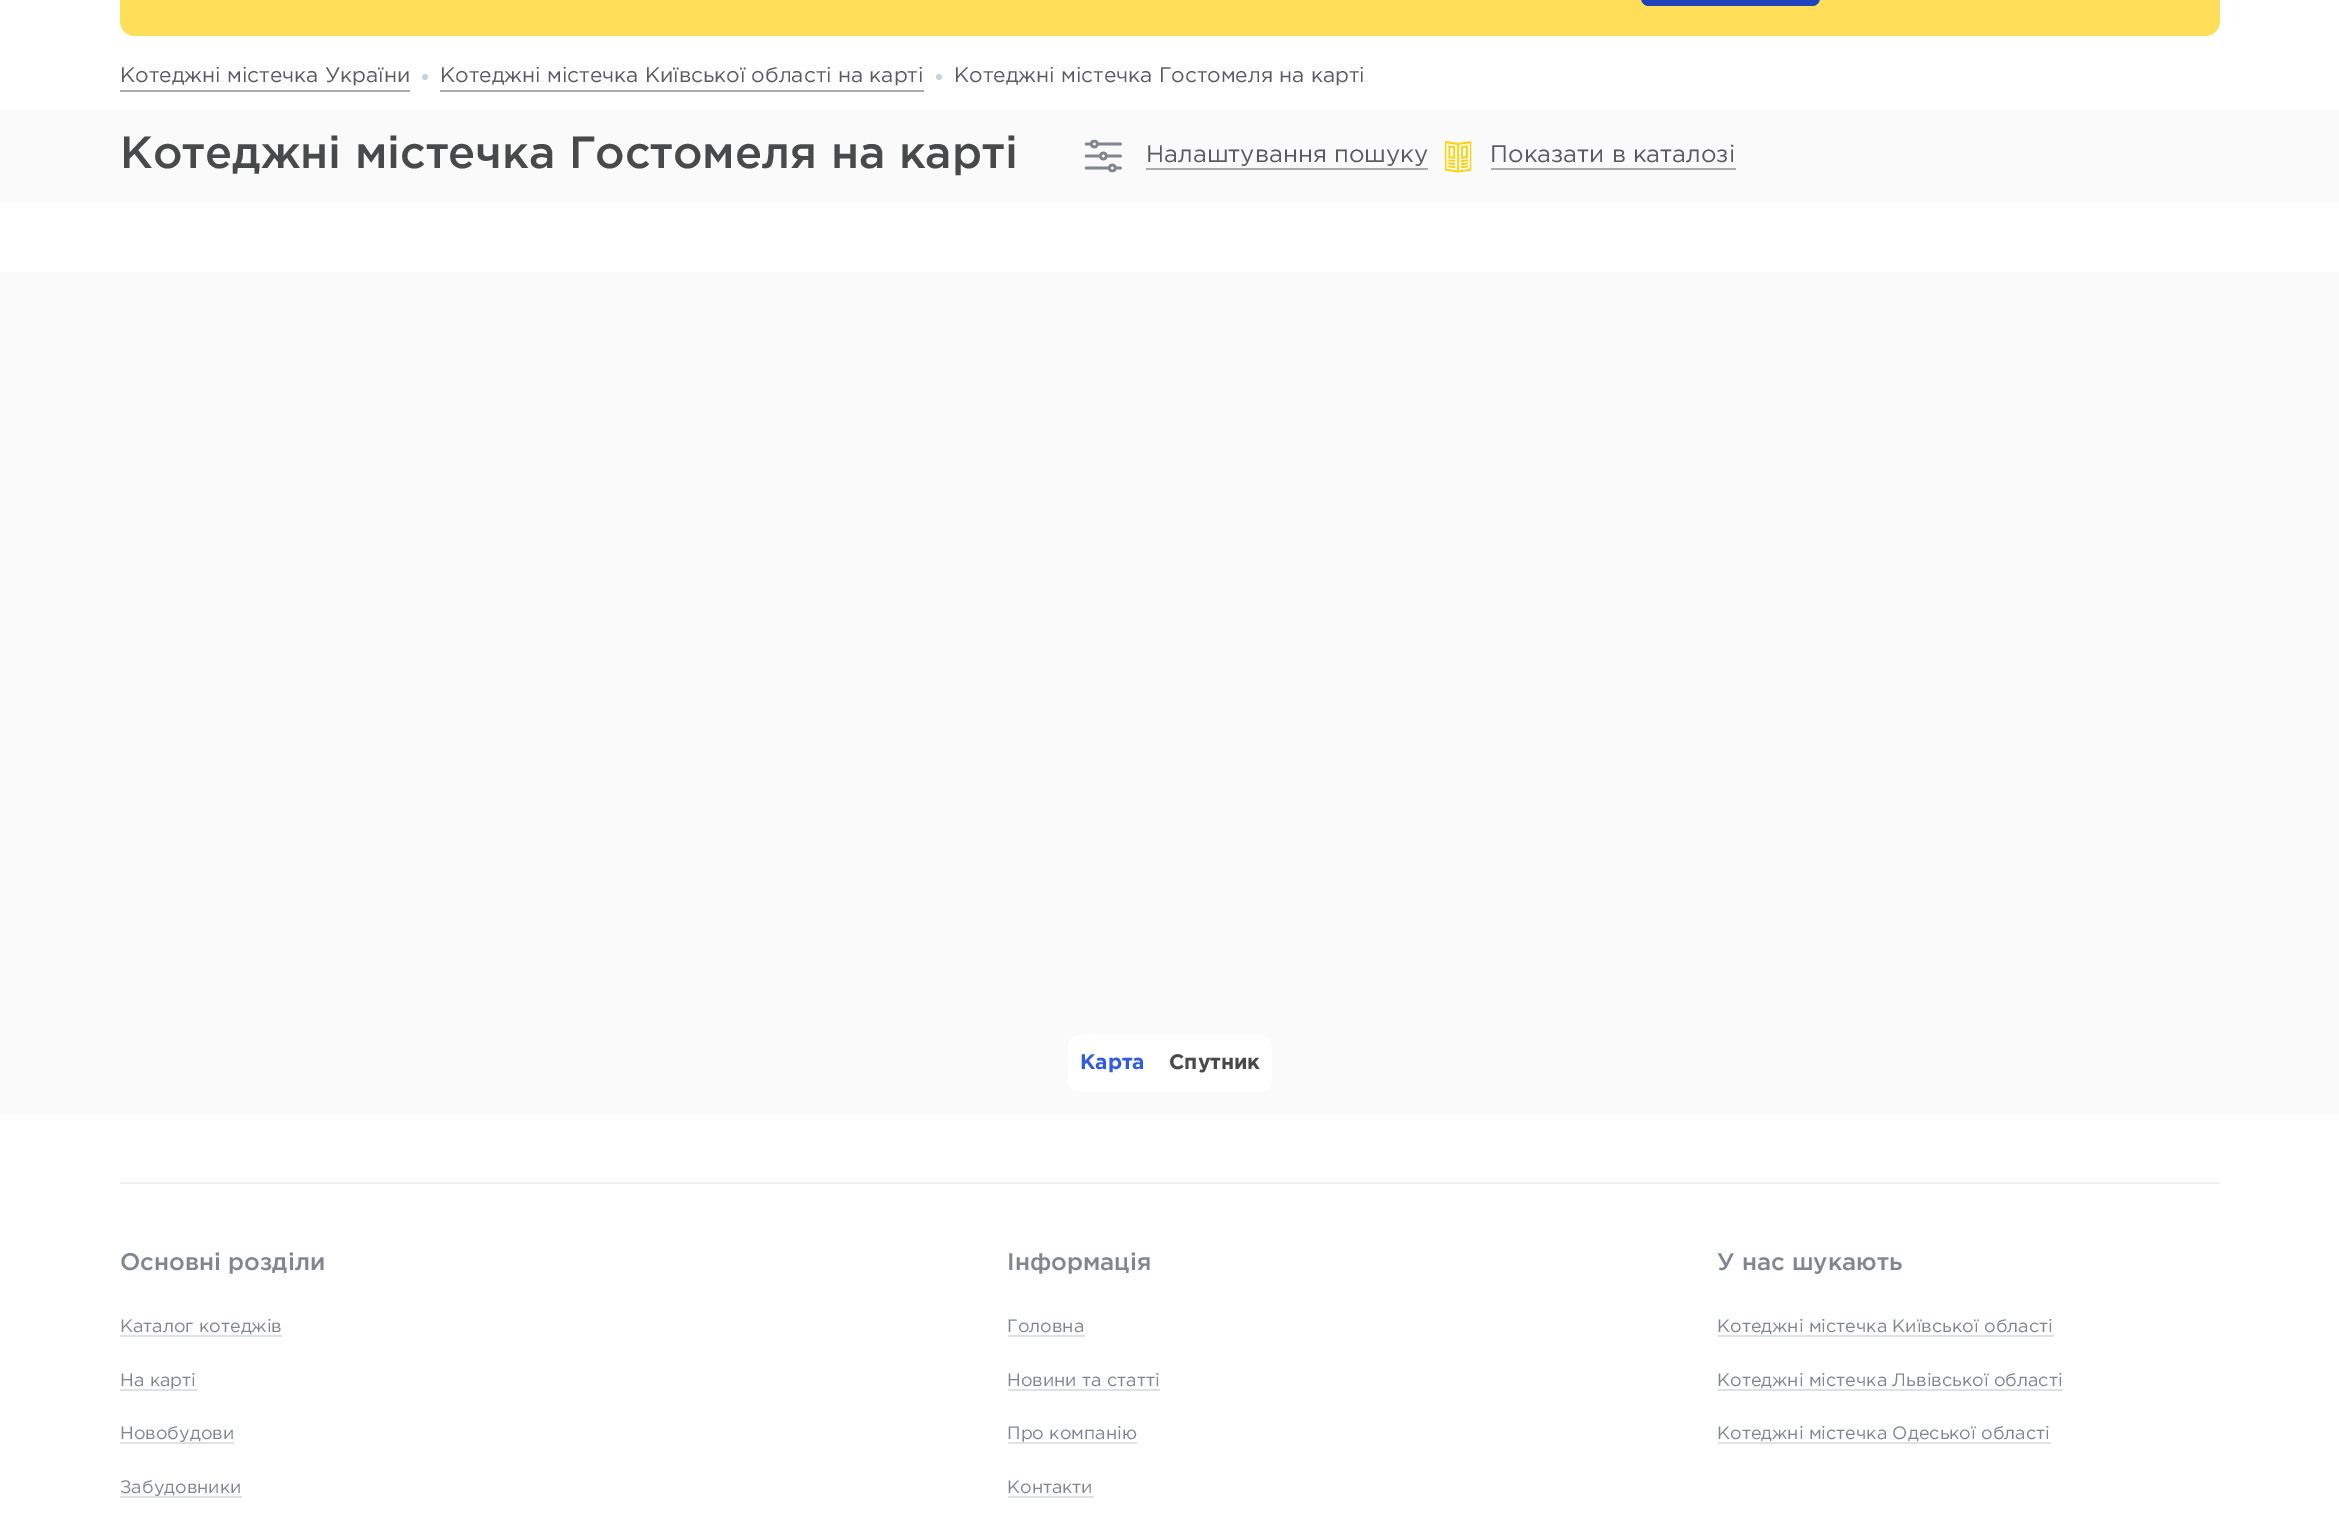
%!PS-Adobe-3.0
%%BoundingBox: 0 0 2339 1532
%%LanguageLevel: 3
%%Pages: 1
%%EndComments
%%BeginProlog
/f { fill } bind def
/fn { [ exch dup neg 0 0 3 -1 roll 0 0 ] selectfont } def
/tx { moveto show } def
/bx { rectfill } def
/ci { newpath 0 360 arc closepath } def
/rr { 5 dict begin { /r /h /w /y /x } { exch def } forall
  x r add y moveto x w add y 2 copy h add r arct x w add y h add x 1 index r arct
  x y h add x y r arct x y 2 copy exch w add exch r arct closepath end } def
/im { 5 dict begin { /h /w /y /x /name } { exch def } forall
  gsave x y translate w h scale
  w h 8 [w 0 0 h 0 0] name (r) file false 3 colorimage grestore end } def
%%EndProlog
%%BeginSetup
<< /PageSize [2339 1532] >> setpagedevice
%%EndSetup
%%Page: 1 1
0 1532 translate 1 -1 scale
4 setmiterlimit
1 setgray
0 0 2339 1532 bx
1 0.871 0.353 setrgbcolor
120 -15 2100 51 15 rr f
0.114 0.263 0.741 setrgbcolor
1641 -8 179 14 8 rr f
0.675 0.678 0.69 setrgbcolor
120 90 290 2 bx
/Gotham-Regular 21 fn
0.349 0.357 0.376 setrgbcolor
(Котеджні містечка України) 120 82 tx
0.78 0.831 0.867 setrgbcolor
425 77 3 ci f
0.675 0.678 0.69 setrgbcolor
440 90 484 2 bx
0.349 0.357 0.376 setrgbcolor
(Котеджні містечка Київської області на карті) 440 82 tx
0.78 0.831 0.867 setrgbcolor
939 77 3 ci f
0.349 0.357 0.376 setrgbcolor
(Котеджні містечка Гостомеля на карті) 954 82 tx
0.98 setgray
0 110 2339 93 bx
/Gotham-Medium 45 fn
0.282 0.286 0.29 setrgbcolor
(Котеджні містечка Гостомеля на карті) 120 168 tx
(image0.raw) 1084 139 38 34 im
0.667 0.671 0.678 setrgbcolor
1146 168 282 2 bx
/Gotham-Regular 24 fn
0.349 0.357 0.376 setrgbcolor
(Налаштування пошуку) 1146 162 tx
(image1.raw) 1444 141 28 32 im
0.667 0.671 0.678 setrgbcolor
1491 168 245 2 bx
0.349 0.357 0.376 setrgbcolor
(Показати в каталозі) 1490 162 tx
0.98 setgray
0 272 2339 843 bx
1 setgray
1068 1035 204 57 12 rr f
/Gotham-Bold 21 fn
0.188 0.357 0.894 setrgbcolor
(Карта) 1080 1069 tx
0.282 0.286 0.29 setrgbcolor
(Спутник) 1169 1069 tx
0.945 setgray
120 1182 2100 2 bx
/Gotham-Medium 24 fn
0.502 0.525 0.557 setrgbcolor
(Основні розділи) 120 1270 tx
/Gotham-Regular 18 fn
(Каталог котеджів) 120 1332 tx
0.875 0.882 0.89 setrgbcolor
120 1335 162 2 bx
0.502 0.525 0.557 setrgbcolor
(На карті) 120 1386 tx
0.875 0.882 0.89 setrgbcolor
120 1389 77 2 bx
0.502 0.525 0.557 setrgbcolor
(Новобудови) 120 1439 tx
0.875 0.882 0.89 setrgbcolor
120 1442 114 2 bx
0.502 0.525 0.557 setrgbcolor
(Забудовники) 120 1493 tx
0.875 0.882 0.89 setrgbcolor
120 1496 122 2 bx
/Gotham-Medium 24 fn
0.502 0.525 0.557 setrgbcolor
(Інформація) 1007 1270 tx
/Gotham-Regular 18 fn
(Головна) 1007 1332 tx
0.875 0.882 0.89 setrgbcolor
1008 1335 77 2 bx
0.502 0.525 0.557 setrgbcolor
(Новини та статті) 1007 1386 tx
0.875 0.882 0.89 setrgbcolor
1008 1389 152 2 bx
0.502 0.525 0.557 setrgbcolor
(Про компанію) 1007 1439 tx
0.875 0.882 0.89 setrgbcolor
1008 1442 129 2 bx
0.502 0.525 0.557 setrgbcolor
(Контакти) 1007 1493 tx
0.875 0.882 0.89 setrgbcolor
1008 1496 86 2 bx
/Gotham-Medium 24 fn
0.502 0.525 0.557 setrgbcolor
(У нас шукають) 1717 1270 tx
/Gotham-Regular 18 fn
(Котеджні містечка Київської області) 1717 1332 tx
0.875 0.882 0.89 setrgbcolor
1718 1335 336 2 bx
0.502 0.525 0.557 setrgbcolor
(Котеджні містечка Львівської області) 1717 1386 tx
0.875 0.882 0.89 setrgbcolor
1718 1389 345 2 bx
0.502 0.525 0.557 setrgbcolor
(Котеджні містечка Одеської області) 1717 1439 tx
0.875 0.882 0.89 setrgbcolor
1718 1442 333 2 bx
showpage
%%EOF
